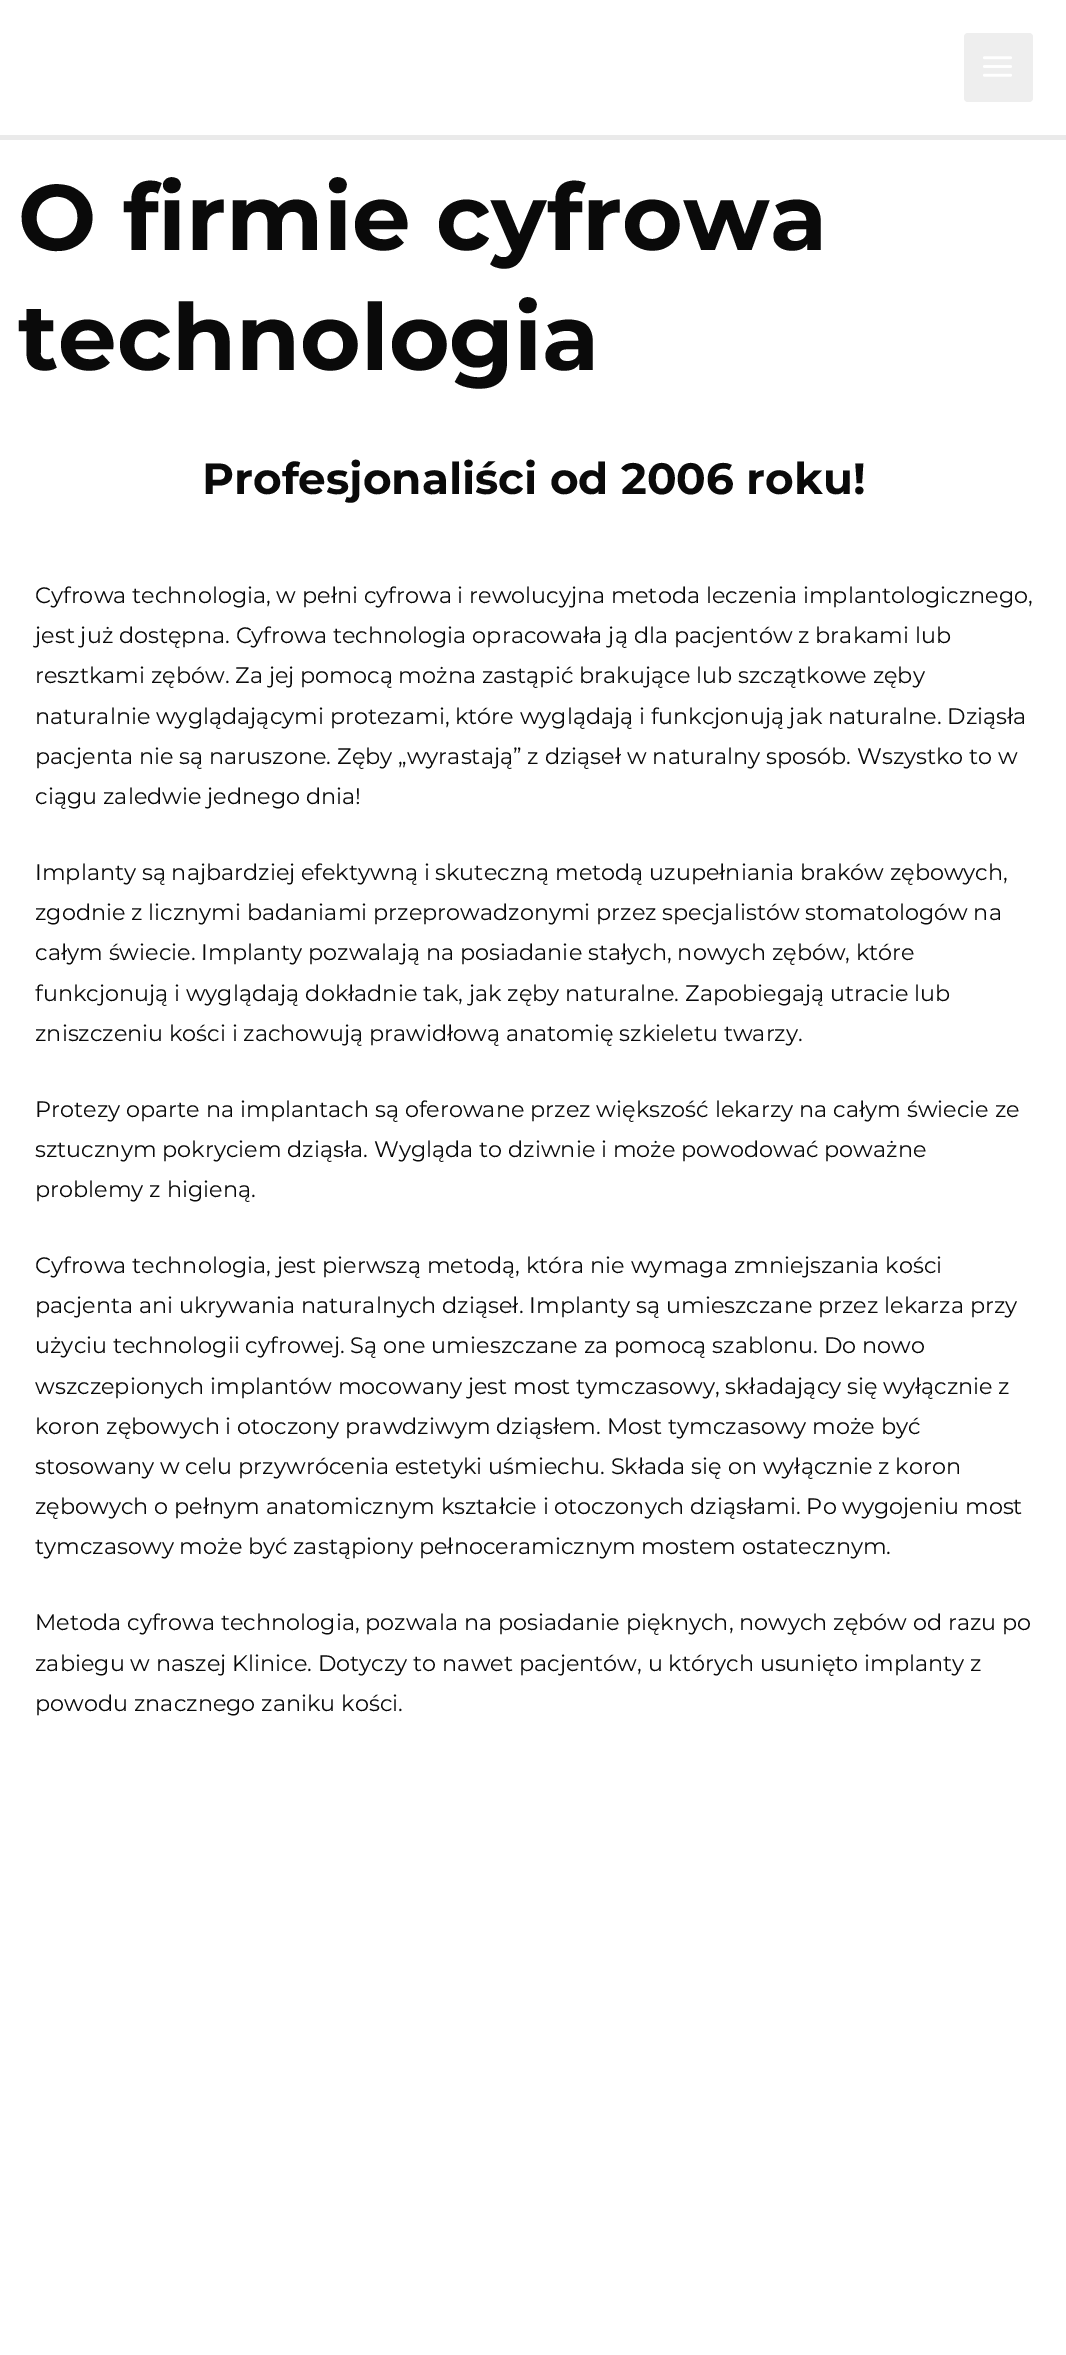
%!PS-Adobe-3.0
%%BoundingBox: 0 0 1066 2355
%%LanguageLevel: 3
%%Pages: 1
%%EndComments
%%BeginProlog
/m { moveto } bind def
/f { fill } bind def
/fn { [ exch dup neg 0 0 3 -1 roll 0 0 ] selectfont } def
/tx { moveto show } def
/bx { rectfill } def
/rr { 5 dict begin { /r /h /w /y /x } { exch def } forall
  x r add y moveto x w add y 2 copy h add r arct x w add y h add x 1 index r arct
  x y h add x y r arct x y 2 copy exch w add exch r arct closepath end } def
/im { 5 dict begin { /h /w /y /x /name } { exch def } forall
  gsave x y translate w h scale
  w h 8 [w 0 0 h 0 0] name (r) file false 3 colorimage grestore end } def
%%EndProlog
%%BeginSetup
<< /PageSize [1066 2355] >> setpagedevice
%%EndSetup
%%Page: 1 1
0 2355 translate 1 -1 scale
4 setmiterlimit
1 setgray
0 0 1066 2355 bx
0.918 setgray
0 135 1066 5 bx
0.933 setgray
964 33 69 69 4 rr f
(image0.raw) 983 56 29 21 im
/Montserrat-Bold 92.75 fn
0.039 setgray
(O firmie cyfrowa) 18 250 tx
(technologia) 18 370 tx
/Montserrat-Bold 43.75 fn
(Profesjonaliści od 2006 roku!) 202 494 tx
/Montserrat-Regular 22.35 fn
(Cyfrowa technologia) 35 603 tx
266 603 m -0.1 0 32 (, w pełni cyfrowa i rewolucyjna metoda leczenia implantologicznego,) widthshow
(jest już dostępna. Cyfrowa technologia opracowała ją dla pacjentów z brakami lub) 35 643 tx
35 683 m -0.1 0 32 (resztkami zębów. Za jej pomocą można zastąpić brakujące lub szczątkowe zęby) widthshow
35 724 m -0.25 0 32 (naturalnie wyglądającymi protezami, które wyglądają i funkcjonują jak naturalne. Dziąsła) widthshow
(pacjenta nie są naruszone. Zęby „wyrastają” z dziąseł w naturalny sposób. Wszystko to w) 35 764 tx
(ciągu zaledwie jednego dnia!) 35 804 tx
35 880 m -0.25 0 32 (Implanty są najbardziej efektywną i skuteczną metodą uzupełniania braków zębowych,) widthshow
35 920 m -0.25 0 32 (zgodnie z licznymi badaniami przeprowadzonymi przez specjalistów stomatologów na) widthshow
35 960 m -0.1 0 32 (całym świecie. Implanty pozwalają na posiadanie stałych, nowych zębów, które) widthshow
35 1001 m -0.1 0 32 (funkcjonują i wyglądają dokładnie tak, jak zęby naturalne. Zapobiegają utracie lub) widthshow
35 1041 m -0.25 0 32 (zniszczeniu kości i zachowują prawidłową anatomię szkieletu twarzy.) widthshow
(Protezy oparte na implantach są oferowane przez większość lekarzy na całym świecie ze) 35 1117 tx
35 1157 m -0.1 0 32 (sztucznym pokryciem dziąsła. Wygląda to dziwnie i może powodować poważne) widthshow
(problemy z higieną.) 35 1197 tx
(Cyfrowa technologia) 35 1273 tx
(, jest pierwszą metodą, która nie wymaga zmniejszania kości) 266 1273 tx
35 1313 m -0.1 0 32 (pacjenta ani ukrywania naturalnych dziąseł. Implanty są umieszczane przez lekarza przy) widthshow
35 1353 m -0.1 0 32 (użyciu technologii cyfrowej. Są one umieszczane za pomocą szablonu. Do nowo) widthshow
35 1394 m -0.25 0 32 (wszczepionych implantów mocowany jest most tymczasowy, składający się wyłącznie z) widthshow
35 1434 m -0.1 0 32 (koron zębowych i otoczony prawdziwym dziąsłem. Most tymczasowy może być) widthshow
(stosowany w celu przywrócenia estetyki uśmiechu. Składa się on wyłącznie z koron) 35 1474 tx
35 1514 m -0.1 0 32 (zębowych o pełnym anatomicznym kształcie i otoczonych dziąsłami. Po wygojeniu most) widthshow
35 1554 m -0.25 0 32 (tymczasowy może być zastąpiony pełnoceramicznym mostem ostatecznym.) widthshow
35 1630 m -0.1 0 32 (Metoda cyfrowa technologia, pozwala na posiadanie pięknych, nowych zębów od razu po) widthshow
(zabiegu w naszej Klinice. Dotyczy to nawet pacjentów, u których usunięto implanty z) 35 1671 tx
(powodu znacznego zaniku kości.) 35 1711 tx
showpage
%%EOF
